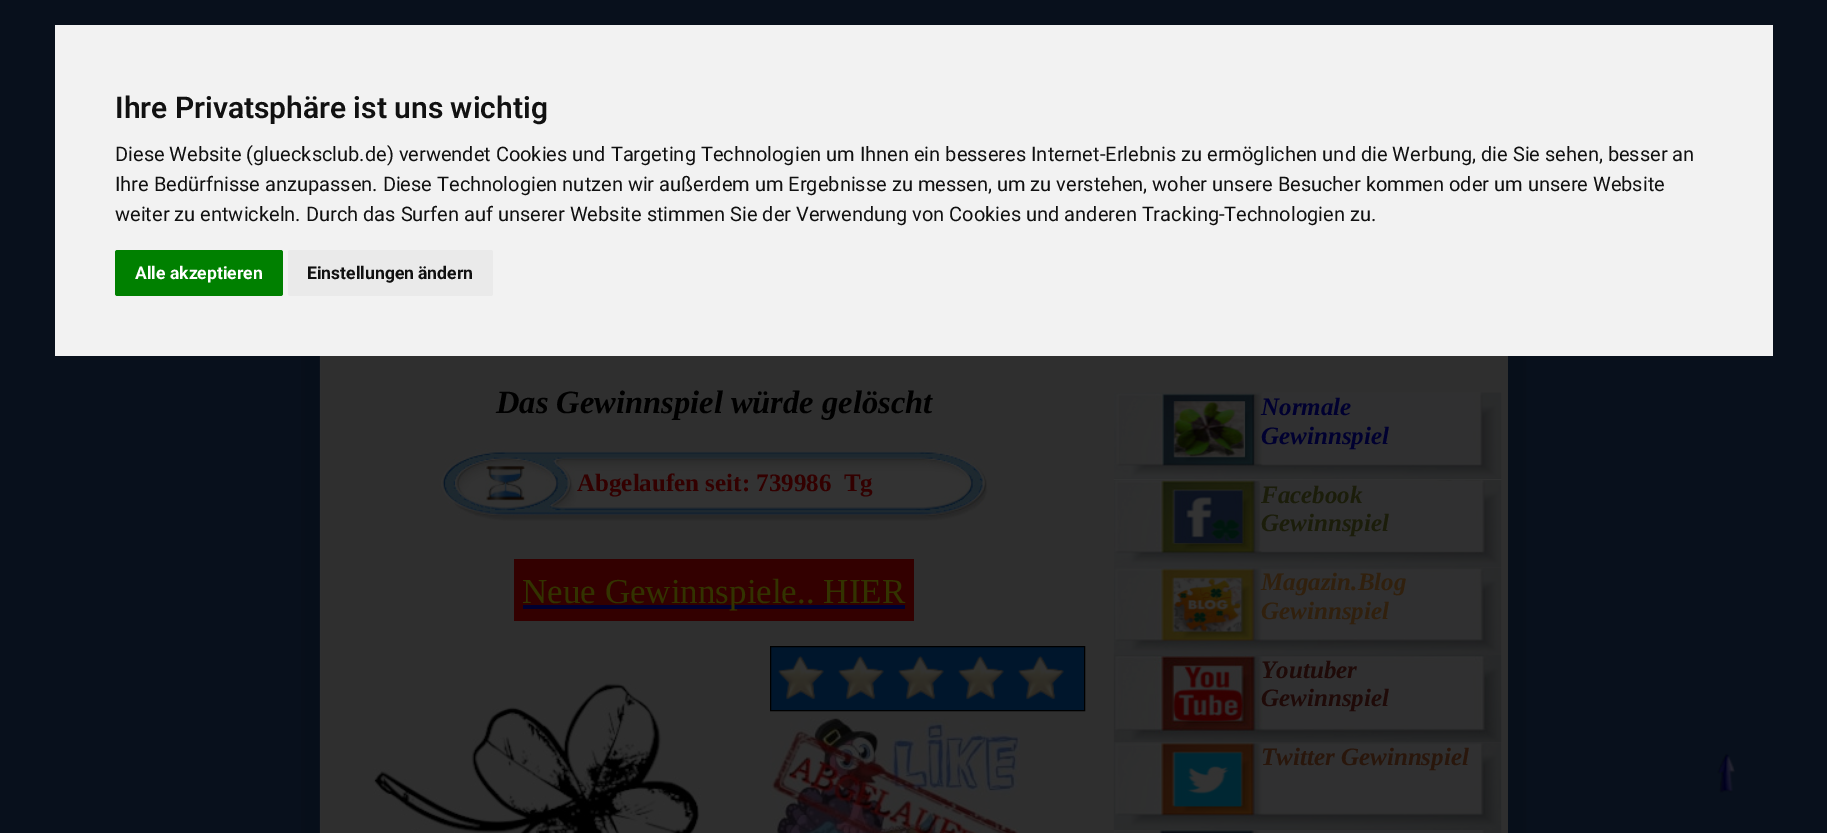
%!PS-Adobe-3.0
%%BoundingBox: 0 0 1827 833
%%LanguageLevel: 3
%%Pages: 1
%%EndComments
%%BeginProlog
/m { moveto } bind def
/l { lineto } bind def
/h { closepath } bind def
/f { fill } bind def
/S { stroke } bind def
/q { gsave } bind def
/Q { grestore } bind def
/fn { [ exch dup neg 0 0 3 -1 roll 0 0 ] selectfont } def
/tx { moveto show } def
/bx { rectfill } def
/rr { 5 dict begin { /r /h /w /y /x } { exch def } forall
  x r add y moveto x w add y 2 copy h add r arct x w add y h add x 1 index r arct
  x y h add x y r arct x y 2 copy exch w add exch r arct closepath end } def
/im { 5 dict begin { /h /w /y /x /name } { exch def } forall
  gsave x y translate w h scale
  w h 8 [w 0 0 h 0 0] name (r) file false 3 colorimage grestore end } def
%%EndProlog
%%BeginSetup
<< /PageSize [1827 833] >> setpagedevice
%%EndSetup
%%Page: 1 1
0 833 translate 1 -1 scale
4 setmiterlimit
0.031 0.063 0.11 setrgbcolor
0 0 1827 833 bx
0.949 setgray
55 25 1718 331 bx
/Roboto-SemiBold 30 fn
0.067 setgray
(Ihre Privatsphäre ist uns wichtig) 115 118 tx
/Roboto-Regular 20 fn
(Diese Website \(gluecksclub.de\) verwendet Cookies und Targeting Technologien um Ihnen ein besseres Internet-Erlebnis zu ermöglichen und die Werbung, die Sie sehen, besser an) 115 161 tx
(Ihre Bedürfnisse anzupassen. Diese Technologien nutzen wir außerdem um Ergebnisse zu messen, um zu verstehen, woher unsere Besucher kommen oder um unsere Website) 115 191 tx
(weiter zu entwickeln. Durch das Surfen auf unserer Website stimmen Sie der Verwendung von Cookies und anderen Tracking-Technologien zu.) 115 221 tx
0 0.502 0 setrgbcolor
115 250 168 46 2.5 rr f
/Roboto-Bold 17.5 fn
1 setgray
(Alle akzeptieren) 135 279 tx
0.918 setgray
288 250 205 46 2.5 rr f
0.067 setgray
(Einstellungen ändern) 307 279 tx
(image0.raw) 301 356 1226 477 im
0.184 setgray
321 356 1187 477 bx
/LiberationSerif-BoldItalic 32.5 fn
0 setgray
(Das Gewinnspiel würde gelöscht) 496 413 tx
(image1.raw) 439 446 549 75 im
/LiberationSerif-Bold 25 fn
0.2 0 0 setrgbcolor
(Abgelaufen seit: 739986  Tg) 577 491 tx
514 559 400 62 bx
0 0 0.188 setrgbcolor
523 605 382 4 bx
/LiberationSerif-Regular 35 fn
0.2 0.2 0 setrgbcolor
(Neue Gewinnspiele.. HIER) 522 603 tx
(image2.raw) 373 683 328 150 im
0 0.086 0.173 setrgbcolor
770.5 646.5 m 1084.5 646.5 l 1084.5 710.5 l 770.5 710.5 l h q f Q
0 setgray
S
(image3.raw) 778 656 46 44 im
(image3.raw) 838 656 46 44 im
(image3.raw) 898 656 46 44 im
(image3.raw) 958 656 46 44 im
(image4.raw) 1018 656 46 44 im
(image5.raw) 770 717 250 116 im
(image6.raw) 1113 392 389 88 im
/LiberationSerif-BoldItalic 25 fn
0 0 0.188 setrgbcolor
(Normale) 1261 415 tx
(Gewinnspiel) 1261 444 tx
(image7.raw) 1114 480 388 88 im
0.106 0.114 0.039 setrgbcolor
(Facebook) 1261 503 tx
(Gewinnspiel) 1261 531 tx
(image8.raw) 1113 567 389 88 im
0.192 0.125 0.051 setrgbcolor
(Magazin.Blog) 1261 590 tx
(Gewinnspiel) 1261 619 tx
(image9.raw) 1113 655 389 88 im
0.122 0.039 0.031 setrgbcolor
(Youtuber) 1261 678 tx
(Gewinnspiel) 1261 706 tx
(image10.raw) 1113 742 389 88 im
0.161 0.086 0.043 setrgbcolor
(Twitter Gewinnspiel) 1261 765 tx
(image11.raw) 1114 830 388 3 im
(image12.raw) 1717 753 18 40 im
showpage
%%EOF
